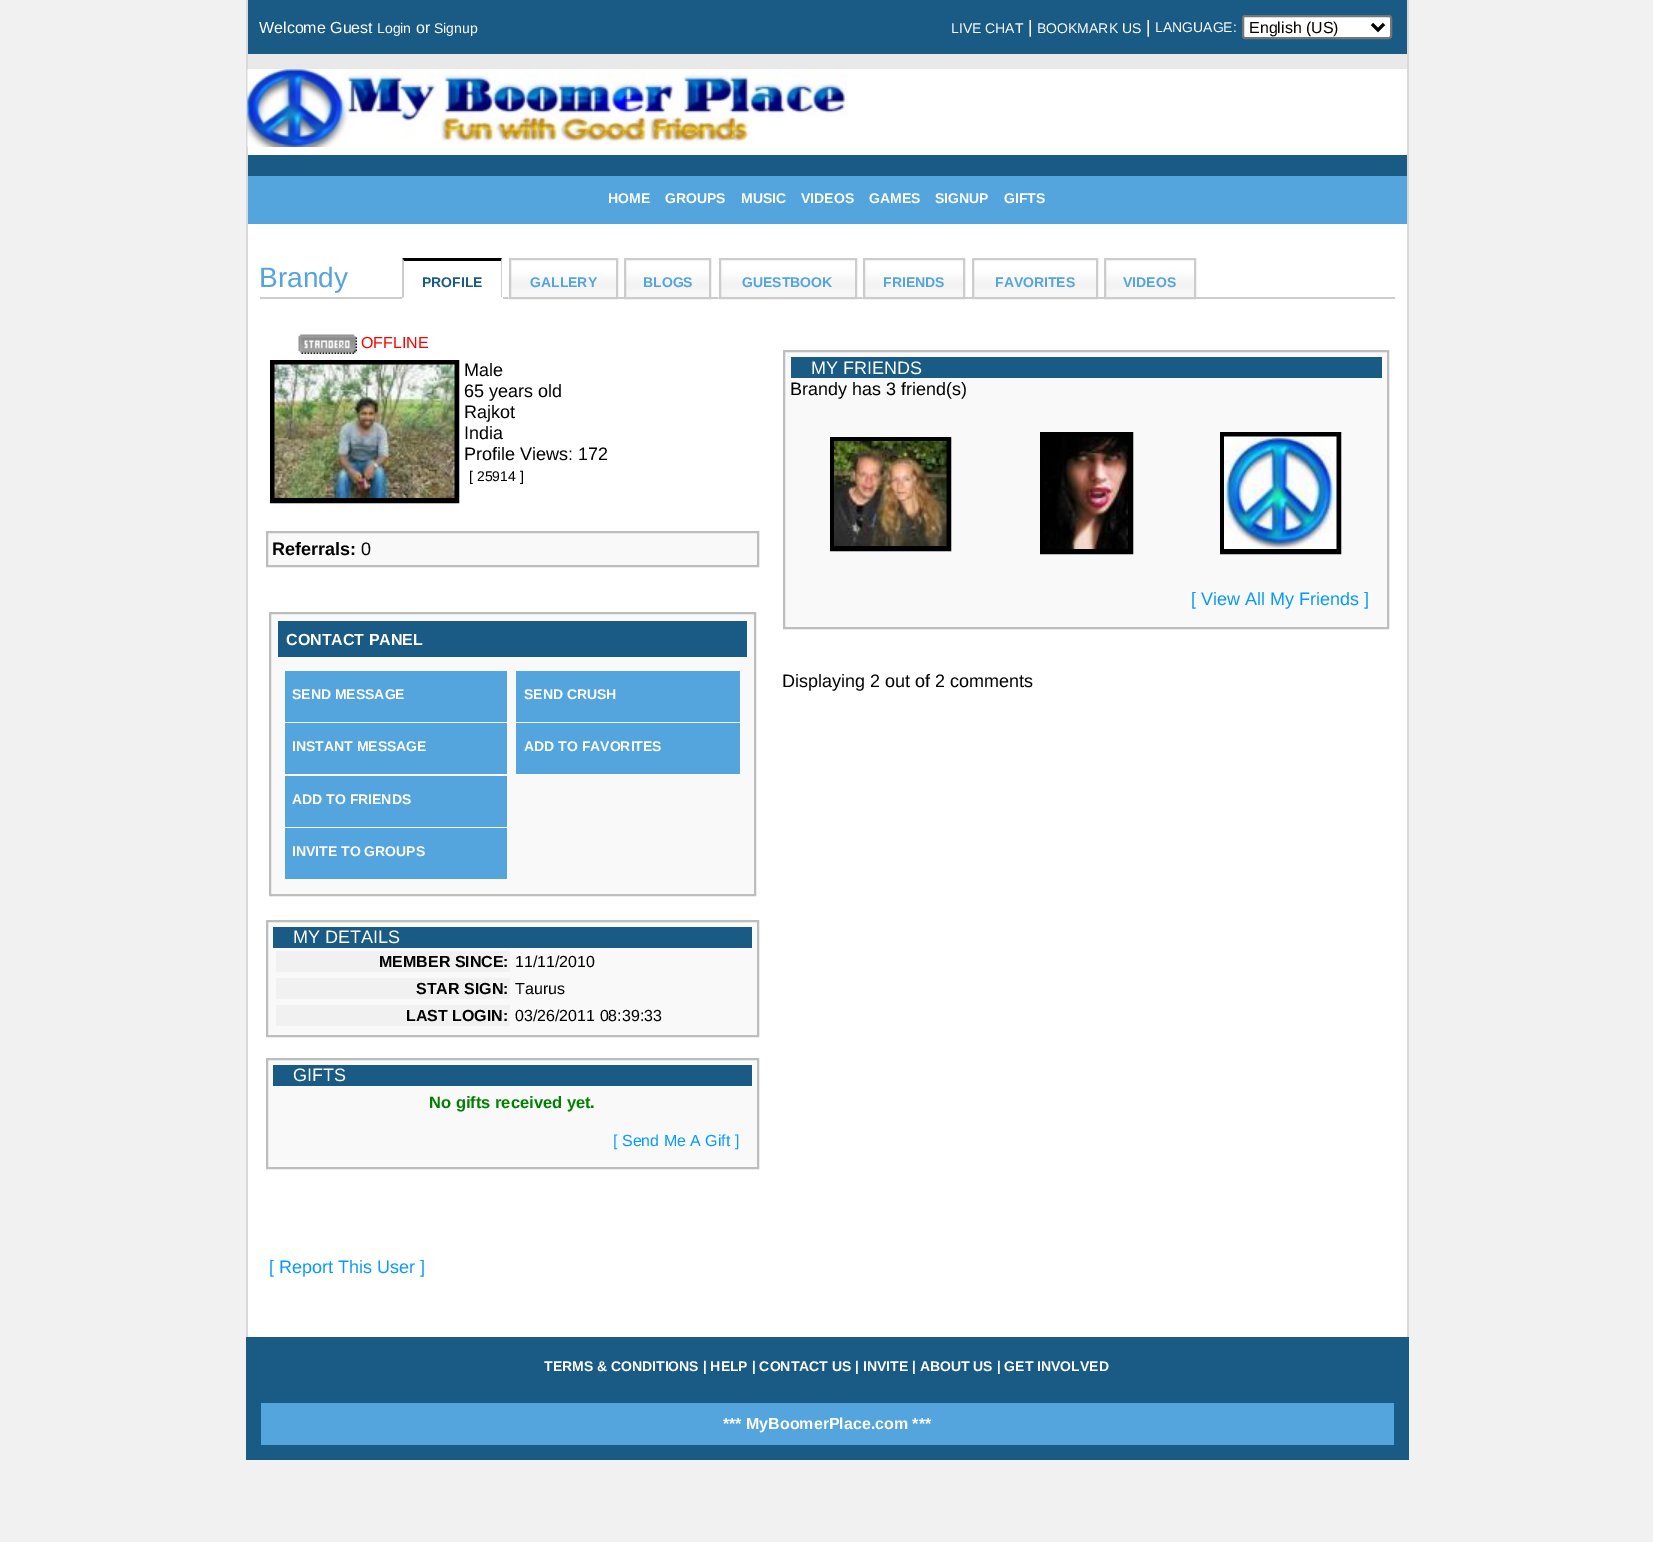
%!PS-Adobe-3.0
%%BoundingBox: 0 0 1653 1542
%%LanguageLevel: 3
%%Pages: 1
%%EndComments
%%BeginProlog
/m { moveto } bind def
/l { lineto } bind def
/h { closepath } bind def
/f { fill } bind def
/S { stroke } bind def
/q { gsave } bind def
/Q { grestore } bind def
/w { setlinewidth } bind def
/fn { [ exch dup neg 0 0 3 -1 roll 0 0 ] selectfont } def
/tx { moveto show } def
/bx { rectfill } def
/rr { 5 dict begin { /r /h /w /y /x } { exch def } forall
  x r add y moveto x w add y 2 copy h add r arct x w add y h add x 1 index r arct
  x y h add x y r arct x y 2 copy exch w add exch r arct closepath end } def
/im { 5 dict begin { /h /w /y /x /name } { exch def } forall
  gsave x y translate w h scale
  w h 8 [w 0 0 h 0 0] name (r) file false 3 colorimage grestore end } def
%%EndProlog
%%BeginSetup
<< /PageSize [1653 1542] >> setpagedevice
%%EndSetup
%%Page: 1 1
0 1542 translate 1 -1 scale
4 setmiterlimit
0.945 setgray
0 0 1653 1542 bx
0.098 0.357 0.522 setrgbcolor
248 0 1159 176 bx
0.851 setgray
1407 0 2 1337 bx
246 0 2 1337 bx
/LiberationSans-Regular 16 fn
1 setgray
(Welcome Guest) 259 33 tx
/LiberationSans-Regular 14 fn
(Login) 377 33 tx
/LiberationSans-Regular 16 fn
(or) 416 33 tx
/LiberationSans-Regular 14 fn
(Signup) 434 33 tx
(LIVE CHAT) 951 33 tx
/LiberationSans-Regular 18 fn
(|) 1028 33 tx
/LiberationSans-Regular 14 fn
(BOOKMARK US) 1037 33 tx
/LiberationSans-Regular 18 fn
(|) 1146 33 tx
/LiberationSans-Regular 14 fn
(LANGUAGE:) 1155 32 tx
1243 16 148 22 2 rr q f Q
0.463 setgray
2 w
S
0 setgray
3 w
1372 24 m 1378 30 l 1384 24 l S
/LiberationSans-Regular 16 fn
(English \(US\)) 1249 33 tx
1 setgray
248 69 1159 86 bx
0.914 setgray
248 54 1159 15 bx
(image0.raw) 247 69 601 78 im
0.329 0.643 0.871 setrgbcolor
248 176 1159 48 bx
/LiberationSans-Bold 14 fn
1 setgray
(HOME) 608 203 tx
(GROUPS) 665 203 tx
(MUSIC) 741 203 tx
(VIDEOS) 801 203 tx
(GAMES) 869 203 tx
(SIGNUP) 935 203 tx
(GIFTS) 1004 203 tx
248 224 1159 1113 bx
0.8 setgray
260 297 142 2 bx
/LiberationSans-Regular 28 fn
0.329 0.643 0.871 setrgbcolor
(Brandy) 259 287 tx
0 setgray
402 258 m 502 258 l 501 261 l 404 261 l h f
0.8 setgray
502 258 m 502 298 l 501 297 l 501 261 l h f
1 setgray
501 297 2 1 bx
0.8 setgray
402 298 m 402 258 l 404 261 l 404 297 l h f
/LiberationSans-Bold 14 fn
0.098 0.357 0.522 setrgbcolor
(PROFILE) 422 287 tx
0.8 setgray
503 297 6 2 bx
(image1.raw) 508 258 108 41 im
2 w
510 259 107 39 rectstroke
0.329 0.643 0.871 setrgbcolor
(GALLERY) 530 287 tx
(image2.raw) 626 260 83 37 im
0.8 setgray
625 259 85 39 rectstroke
0.329 0.643 0.871 setrgbcolor
(BLOGS) 643 287 tx
0.8 setgray
711 297 8 2 bx
(image3.raw) 718 258 137 41 im
720 259 136 39 rectstroke
0.329 0.643 0.871 setrgbcolor
(GUESTBOOK) 742 287 tx
0.8 setgray
857 297 6 2 bx
(image4.raw) 862 258 101 41 im
864 259 100 39 rectstroke
0.329 0.643 0.871 setrgbcolor
(FRIENDS) 883 287 tx
(image5.raw) 974 260 122 37 im
0.8 setgray
973 259 124 39 rectstroke
0.329 0.643 0.871 setrgbcolor
(FAVORITES) 995 287 tx
(image6.raw) 1106 260 88 37 im
0.8 setgray
1105 259 90 39 rectstroke
0.329 0.643 0.871 setrgbcolor
(VIDEOS) 1123 287 tx
0.8 setgray
618 297 6 2 bx
965 297 7 2 bx
1098 297 6 2 bx
1196 297 199 2 bx
(image7.raw) 298 334 59 20 im
/LiberationSans-Regular 16 fn
1 0 0 setrgbcolor
(OFFLINE) 361 348 tx
0 setgray
5 w
272.5 362.5 184 138 rectstroke
(image8.raw) 274 364 181 134 im
/LiberationSans-Regular 18 fn
(Male) 464 376 tx
(65 years old) 464 397 tx
(Rajkot) 464 418 tx
(India) 464 439 tx
(Profile Views: 172) 464 460 tx
/LiberationSans-Regular 14 fn
([ 25914 ]) 469 481 tx
0.976 setgray
267 532 m 758 532 l 758 566 l 267 566 l h q f Q
0.741 setgray
2 w
S
/LiberationSans-Bold 18 fn
0 setgray
(Referrals:) 272 555 tx
/LiberationSans-Regular 18 fn
(0) 361 555 tx
0.976 setgray
270 613 m 755 613 l 755 895 l 270 895 l h q f Q
0.741 setgray
S
0.098 0.357 0.522 setrgbcolor
278 621 469 36 bx
/LiberationSans-Bold 16 fn
1 setgray
(CONTACT PANEL) 286 645 tx
0.329 0.643 0.871 setrgbcolor
285 671 222 51 bx
/LiberationSans-Bold 14 fn
1 setgray
(SEND MESSAGE) 292 699 tx
0.329 0.643 0.871 setrgbcolor
285 723 222 51 bx
1 setgray
(INSTANT MESSAGE) 292 751 tx
0.329 0.643 0.871 setrgbcolor
285 776 222 51 bx
1 setgray
(ADD TO FRIENDS) 292 804 tx
0.329 0.643 0.871 setrgbcolor
285 828 222 51 bx
1 setgray
(INVITE TO GROUPS) 292 856 tx
0.329 0.643 0.871 setrgbcolor
516 671 224 51 bx
1 setgray
(SEND CRUSH) 524 699 tx
0.329 0.643 0.871 setrgbcolor
516 723 224 51 bx
1 setgray
(ADD TO FAVORITES) 524 751 tx
0.976 setgray
267 921 m 758 921 l 758 1036 l 267 1036 l h q f Q
0.741 setgray
S
0.098 0.357 0.522 setrgbcolor
273 927 479 21 bx
/LiberationSans-Regular 18 fn
1 setgray
(MY DETAILS) 293 943 tx
0.945 setgray
276 951 234 21 bx
/LiberationSans-Bold 16 fn
0 setgray
(MEMBER SINCE:) 379 967 tx
/LiberationSans-Regular 16 fn
(11/11/2010) 515 967 tx
0.945 setgray
276 978 234 21 bx
/LiberationSans-Bold 16 fn
0 setgray
(STAR SIGN:) 416 994 tx
/LiberationSans-Regular 16 fn
(Taurus) 515 994 tx
0.945 setgray
276 1005 234 21 bx
/LiberationSans-Bold 16 fn
0 setgray
(LAST LOGIN:) 406 1021 tx
/LiberationSans-Regular 16 fn
(03/26/2011 08:39:33) 515 1021 tx
0.976 setgray
267 1059 m 758 1059 l 758 1168 l 267 1168 l h q f Q
0.741 setgray
S
0.098 0.357 0.522 setrgbcolor
273 1065 479 21 bx
/LiberationSans-Regular 18 fn
1 setgray
(GIFTS) 293 1081 tx
/LiberationSans-Bold 16.5 fn
0 0.502 0 setrgbcolor
(No gifts received yet.) 429 1108 tx
/LiberationSans-Regular 16 fn
0.024 0.6 0.996 setrgbcolor
([ Send Me A Gift ]) 613 1146 tx
/LiberationSans-Regular 18 fn
([ Report This User ]) 269 1273 tx
0.976 setgray
784 351 m 1388 351 l 1388 628 l 784 628 l h q f Q
0.741 setgray
S
0.098 0.357 0.522 setrgbcolor
791 357 591 21 bx
1 setgray
(MY FRIENDS) 811 374 tx
0 setgray
(Brandy has 3 friend\(s\)) 790 395 tx
5 w
832.5 439.5 116 109 rectstroke
(image9.raw) 834 441 113 105 im
1042.5 434.5 88 117 rectstroke
(image10.raw) 1044 436 84 113 im
1222.5 434.5 116 117 rectstroke
(image11.raw) 1224 436 113 113 im
0.024 0.6 0.996 setrgbcolor
([ View All My Friends ]) 1191 605 tx
0 setgray
(Displaying 2 out of 2 comments) 782 687 tx
0.098 0.357 0.522 setrgbcolor
246 1337 1163 123 bx
/LiberationSans-Bold 14 fn
1 setgray
(TERMS & CONDITIONS | HELP | CONTACT US | INVITE | ABOUT US | GET INVOLVED) 544 1371 tx
0.329 0.643 0.871 setrgbcolor
261 1403 1133 42 bx
/LiberationSans-Bold 16 fn
1 setgray
(*** MyBoomerPlace.com ***) 723 1429 tx
showpage
%%EOF
